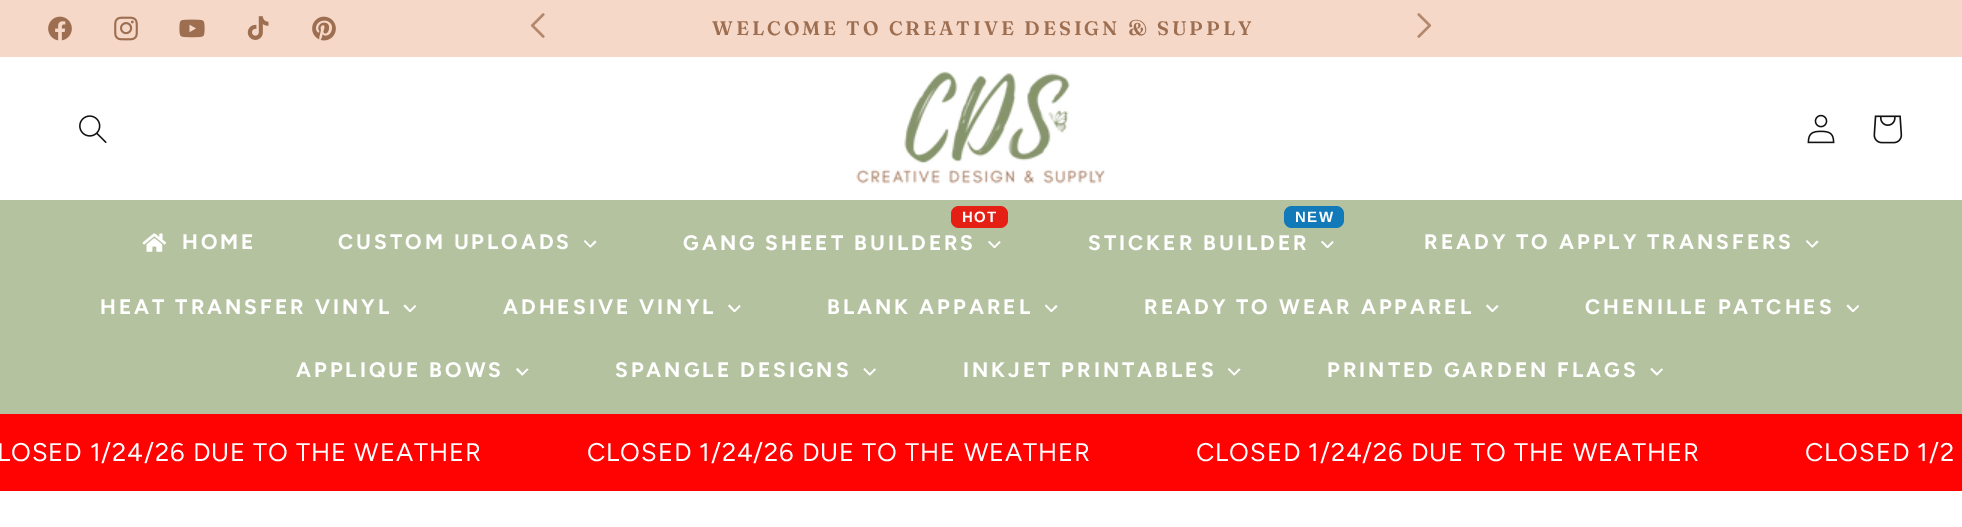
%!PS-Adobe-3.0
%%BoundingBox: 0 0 1962 527
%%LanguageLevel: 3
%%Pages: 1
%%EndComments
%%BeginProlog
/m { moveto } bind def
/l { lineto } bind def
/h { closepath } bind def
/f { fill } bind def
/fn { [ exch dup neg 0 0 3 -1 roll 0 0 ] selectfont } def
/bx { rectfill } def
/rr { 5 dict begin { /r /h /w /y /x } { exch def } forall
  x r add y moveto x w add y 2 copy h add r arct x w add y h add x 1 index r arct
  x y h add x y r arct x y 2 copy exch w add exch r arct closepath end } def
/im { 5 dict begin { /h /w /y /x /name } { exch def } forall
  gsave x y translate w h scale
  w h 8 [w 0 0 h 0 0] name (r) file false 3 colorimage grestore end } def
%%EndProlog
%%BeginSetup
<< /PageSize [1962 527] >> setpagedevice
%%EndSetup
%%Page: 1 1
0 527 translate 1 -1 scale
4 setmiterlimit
1 setgray
0 0 1962 527 bx
0.965 0.847 0.788 setrgbcolor
0 0 1962 57 bx
(image0.raw) 48 16 24 25 im
(image1.raw) 114 16 24 25 im
(image2.raw) 179 19 26 19 im
(image3.raw) 247 16 22 24 im
(image4.raw) 312 16 24 25 im
(image5.raw) 530 13 15 25 im
/Fraunces-SemiBold 19.5 fn
0.616 0.435 0.314 setrgbcolor
712 35 m -0.25 0 32 3 0 (WELCOME TO CREATIVE DESIGN & SUPPLY) awidthshow
(image6.raw) 1417 13 15 25 im
(image7.raw) 79 115 28 28 im
(image8.raw) 856 71 249 113 im
(image9.raw) 1807 114 28 30 im
(image10.raw) 1873 115 30 29 im
0.71 0.761 0.627 setrgbcolor
0 200 1962 214 bx
(image11.raw) 142 233 25 19 im
/Figtree-Bold 21 fn
1 setgray
182 249 m 3 0 (HOME) ashow
338 249 m 3 0 (CUSTOM UPLOADS) ashow
595 240.5 m 596.5 242 l 590.5 247.5 l 589.5 246.5 l h f
585 240 m 591 246.5 l 590 247.5 l 584 241.5 l h f
0.898 0.122 0.078 setrgbcolor
951 206 57 22 8 rr f
/LiberationSans-Bold 15 fn
1 setgray
962 222 m 1.5 0 (HOT) ashow
/Figtree-Bold 21 fn
683 250 m 3 0 (GANG SHEET BUILDERS) ashow
999.5 241 m 1000.5 242.5 l 995 248 l 993.5 247 l h f
989.5 241 m 995.5 247 l 994 248 l 988 242 l h f
0.071 0.478 0.722 setrgbcolor
1284 206 60 22 8 rr f
/LiberationSans-Bold 15 fn
1 setgray
1295 222 m 1.5 0 (NEW) ashow
/Figtree-Bold 21 fn
1088 250 m 3 0 (STICKER BUILDER) ashow
1332.5 241 m 1333.5 242.5 l 1328 248 l 1326.5 247 l h f
1322.5 241 m 1328.5 247 l 1327 248 l 1321 242 l h f
1424 249 m 3 0 (READY TO APPLY TRANSFERS) ashow
1817 240.5 m 1818.5 242 l 1812.5 247.5 l 1811.5 246.5 l h f
1807 240 m 1813 246.5 l 1812 247.5 l 1806 241.5 l h f
100 314 m 3 0 (HEAT TRANSFER VINYL) ashow
415 305 m 416 306.5 l 410.5 312 l 409 311 l h f
405 304.5 m 411 311 l 409.5 312 l 403.5 306 l h f
503 314 m 3 0 (ADHESIVE VINYL) ashow
739.5 305 m 740.5 306.5 l 735 312 l 733.5 311 l h f
729.5 304.5 m 735.5 311 l 734 312 l 728 306 l h f
827 314 m 3 0 (BLANK APPAREL) ashow
1056 305 m 1057.5 306.5 l 1051.5 312 l 1050.5 311 l h f
1046 304.5 m 1052.5 311 l 1051 312 l 1045 306 l h f
1144 314 m 3 0 (READY TO WEAR APPAREL) ashow
1497 305 m 1498.5 306.5 l 1492.5 312 l 1491.5 311 l h f
1487.5 304.5 m 1493.5 311 l 1492 312 l 1486 306 l h f
1585 314 m 3 0 (CHENILLE PATCHES) ashow
1858 305 m 1859 306.5 l 1853.5 312 l 1852 311 l h f
1848 304.5 m 1854 311 l 1852.5 312 l 1846.5 306 l h f
296 377 m 3 0 (APPLIQUE BOWS) ashow
527 368.5 m 528.5 369.5 l 522.5 375.5 l 521.5 374 l h f
517.5 368 m 523.5 374 l 522 375.5 l 516 369.5 l h f
615 377 m 3 0 (SPANGLE DESIGNS) ashow
874.5 368.5 m 876 369.5 l 870 375.5 l 869 374 l h f
864.5 368 m 870.5 374 l 869.5 375.5 l 863.5 369.5 l h f
963 377 m 3 0 (INKJET PRINTABLES) ashow
1239 368.5 m 1240.5 369.5 l 1234.5 375.5 l 1233.5 374 l h f
1229 368 m 1235 374 l 1234 375.5 l 1228 369.5 l h f
1327 377 m 3 0 (PRINTED GARDEN FLAGS) ashow
1661.5 368.5 m 1663 369.5 l 1657 375.5 l 1656 374 l h f
1651.5 368 m 1658 374 l 1656.5 375.5 l 1650.5 369.5 l h f
1 0.012 0.012 setrgbcolor
0 414 1962 77 bx
/Figtree-Regular 25.5 fn
1 setgray
-3 461 m 0.9 0 (LOSED 1/24/26 DUE TO THE WEATHER) ashow
587 461 m 0.9 0 (CLOSED 1/24/26 DUE TO THE WEATHER) ashow
1196 461 m 0.9 0 (CLOSED 1/24/26 DUE TO THE WEATHER) ashow
1805 461 m 0.9 0 (CLOSED 1/2) ashow
showpage
%%EOF
